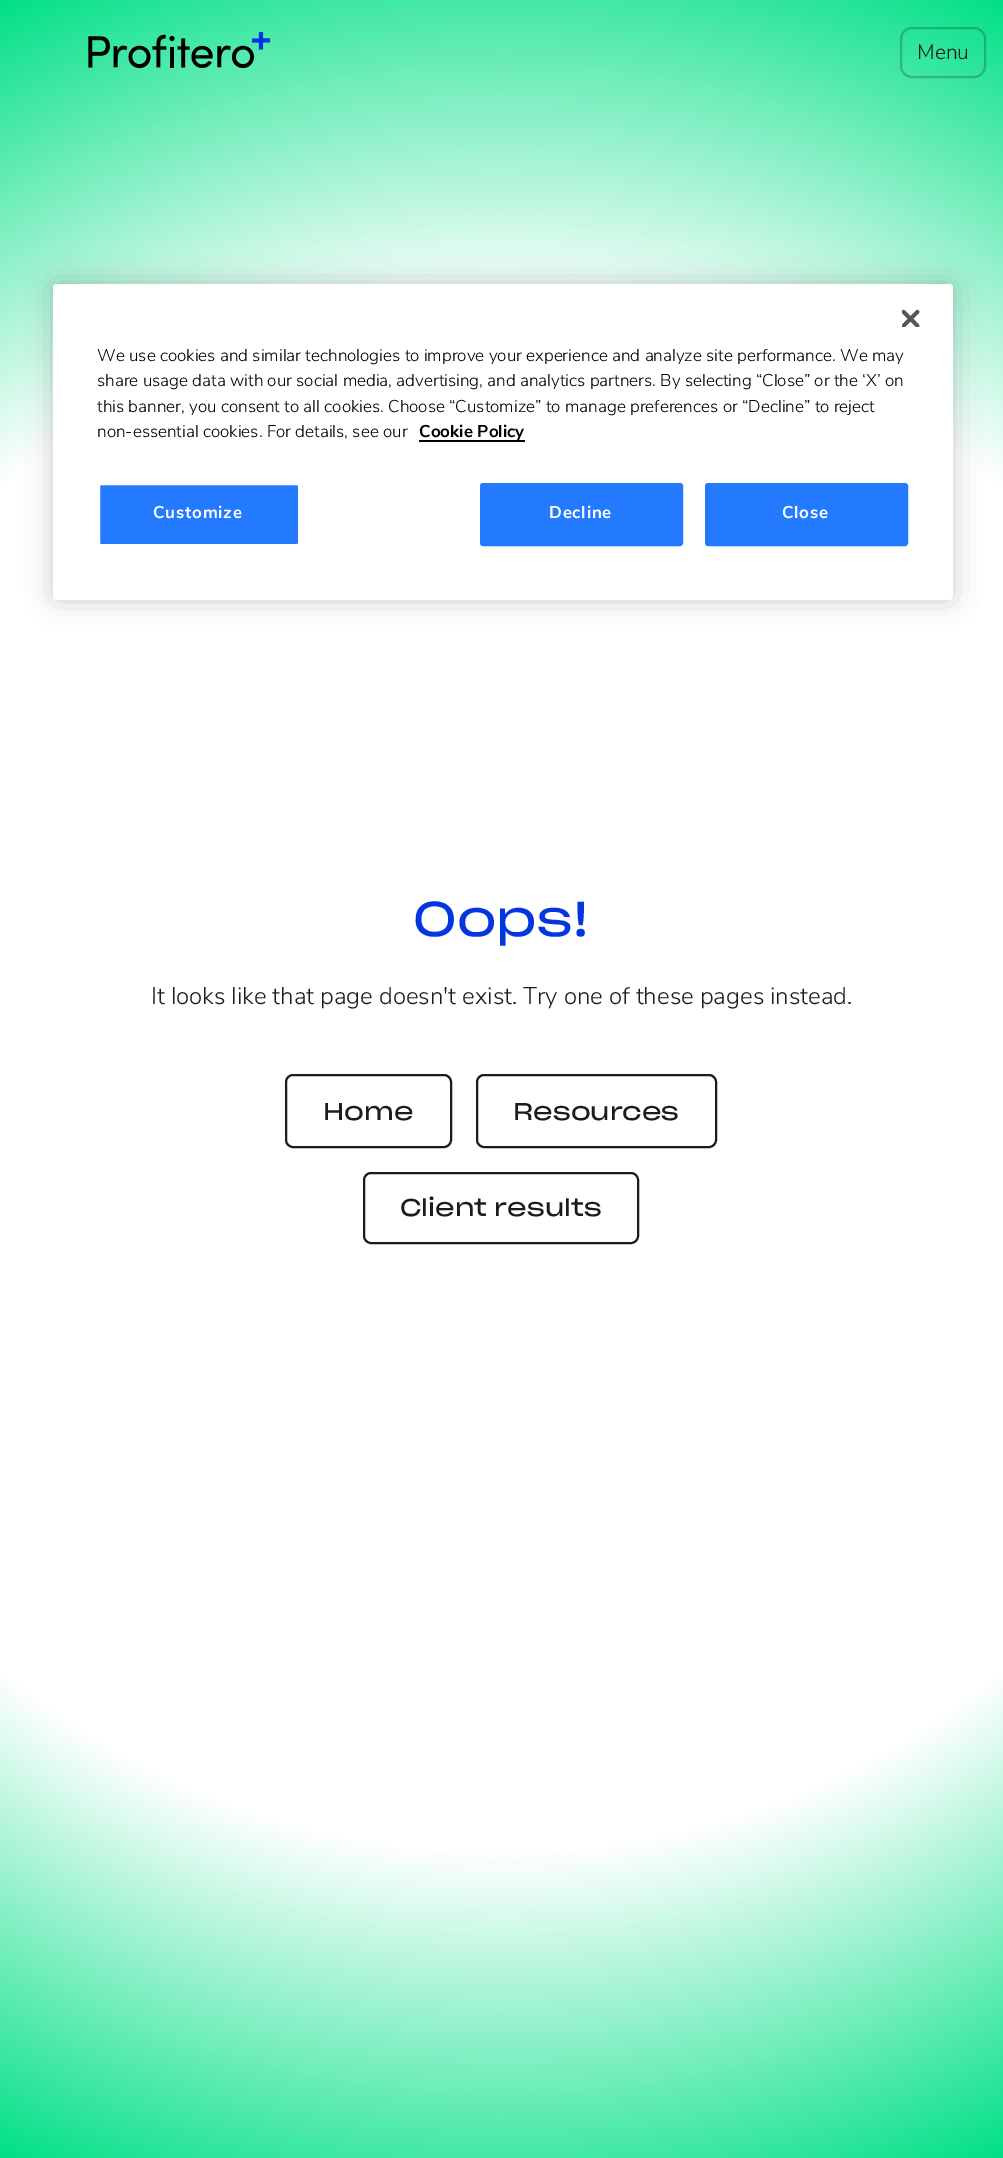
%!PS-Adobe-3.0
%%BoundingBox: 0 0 1003 2158
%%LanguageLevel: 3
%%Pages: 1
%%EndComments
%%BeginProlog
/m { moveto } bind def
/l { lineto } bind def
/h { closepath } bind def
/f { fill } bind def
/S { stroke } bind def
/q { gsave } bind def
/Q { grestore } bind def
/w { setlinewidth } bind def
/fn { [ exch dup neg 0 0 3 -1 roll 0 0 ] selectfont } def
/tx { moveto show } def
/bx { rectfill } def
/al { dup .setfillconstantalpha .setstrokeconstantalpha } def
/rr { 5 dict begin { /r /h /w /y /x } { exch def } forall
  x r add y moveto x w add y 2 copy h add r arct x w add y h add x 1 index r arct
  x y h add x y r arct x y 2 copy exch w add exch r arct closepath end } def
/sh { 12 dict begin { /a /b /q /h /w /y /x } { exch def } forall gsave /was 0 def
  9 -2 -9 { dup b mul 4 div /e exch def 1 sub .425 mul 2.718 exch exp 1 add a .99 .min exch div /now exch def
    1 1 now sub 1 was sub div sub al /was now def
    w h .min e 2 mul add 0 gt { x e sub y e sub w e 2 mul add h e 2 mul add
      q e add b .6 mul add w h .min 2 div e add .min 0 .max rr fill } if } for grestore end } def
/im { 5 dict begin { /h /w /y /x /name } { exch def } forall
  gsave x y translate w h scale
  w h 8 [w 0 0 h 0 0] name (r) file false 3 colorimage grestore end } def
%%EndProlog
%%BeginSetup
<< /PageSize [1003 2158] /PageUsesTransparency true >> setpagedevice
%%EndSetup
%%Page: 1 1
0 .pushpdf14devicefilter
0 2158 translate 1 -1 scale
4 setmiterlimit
1 setgray
0 0 1003 2158 bx
q 0 0 m 1003 0 l 1003 2158 l 0 2158 l h clip newpath 502 1079 translate 1190 1190 scale
<< /ShadingType 3 /ColorSpace /DeviceRGB /Coords [0 0 0 0 0 1] /Extend [true true] /Function << /FunctionType 3 /Domain [0 1] /Functions [<< /FunctionType 2 /Domain [0 1] /C0 [1 1 1] /C1 [1 1 1] /N 1 >> << /FunctionType 2 /Domain [0 1] /C0 [1 1 1] /C1 [0 0.878 0.525] /N 1 >>] /Bounds [0.65] /Encode [0 1 0 1] >> >> shfill Q
(image0.raw) 88 32 182 37 im
0.21 al
0 setgray
2 w
901 28 84 49 11 rr S
/NunitoSans-Light 21 fn
1 al
0.114 0.11 0.102 setrgbcolor
(Menu) 917 59 tx
0 setgray
53 284 900 316 4 13.5 0.2 sh
1 setgray
53 284 900 316 4 rr f
(image1.raw) 902 309 18 18 im
/NunitoSans-Light 17.05 fn
0 setgray
(We use cookies and similar technologies to improve your experience and analyze site performance. We may) 97 361 tx
(share usage data with our social media, advertising, and analytics partners. By selecting “Close” or the ‘X’ on) 97 386 tx
(this banner, you consent to all cookies. Choose “Customize” to manage preferences or “Decline” to reject) 97 412 tx
(non-essential cookies. For details, see our) 97 437 tx
419 440 106 2 bx
/NunitoSans-Bold 17.05 fn
(Cookie Policy) 419 437 tx
0.137 0.478 1 setrgbcolor
99 484 200 61 2 rr q f Q
1 setgray
S
153 518 m 0.75 0 (Customize) ashow
0.137 0.478 1 setrgbcolor
481 484 201 61 2 rr q f Q
S
1 setgray
549 518 m 0.75 0 (Decline) ashow
0.137 0.478 1 setrgbcolor
706 484 201 61 2 rr q f Q
S
1 setgray
782 518 m 0.75 0 (Close) ashow
/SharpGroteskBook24-Regular 48 fn
0.012 0.212 0.878 setrgbcolor
(Oops!) 413 936 tx
/NunitoSans-Light 24 fn
0.114 0.11 0.102 setrgbcolor
(It looks like that page doesn't exist. Try one of these pages instead.) 151 1004 tx
286 1075 165 72 7 rr S
/SharpGroteskBook24-Regular 24 fn
(Home) 323 1120 tx
477 1075 239 72 7 rr S
(Resources) 513 1120 tx
364 1173 274 70 7 rr S
(Client results) 400 1216 tx
.poppdf14devicefilter showpage
%%EOF
